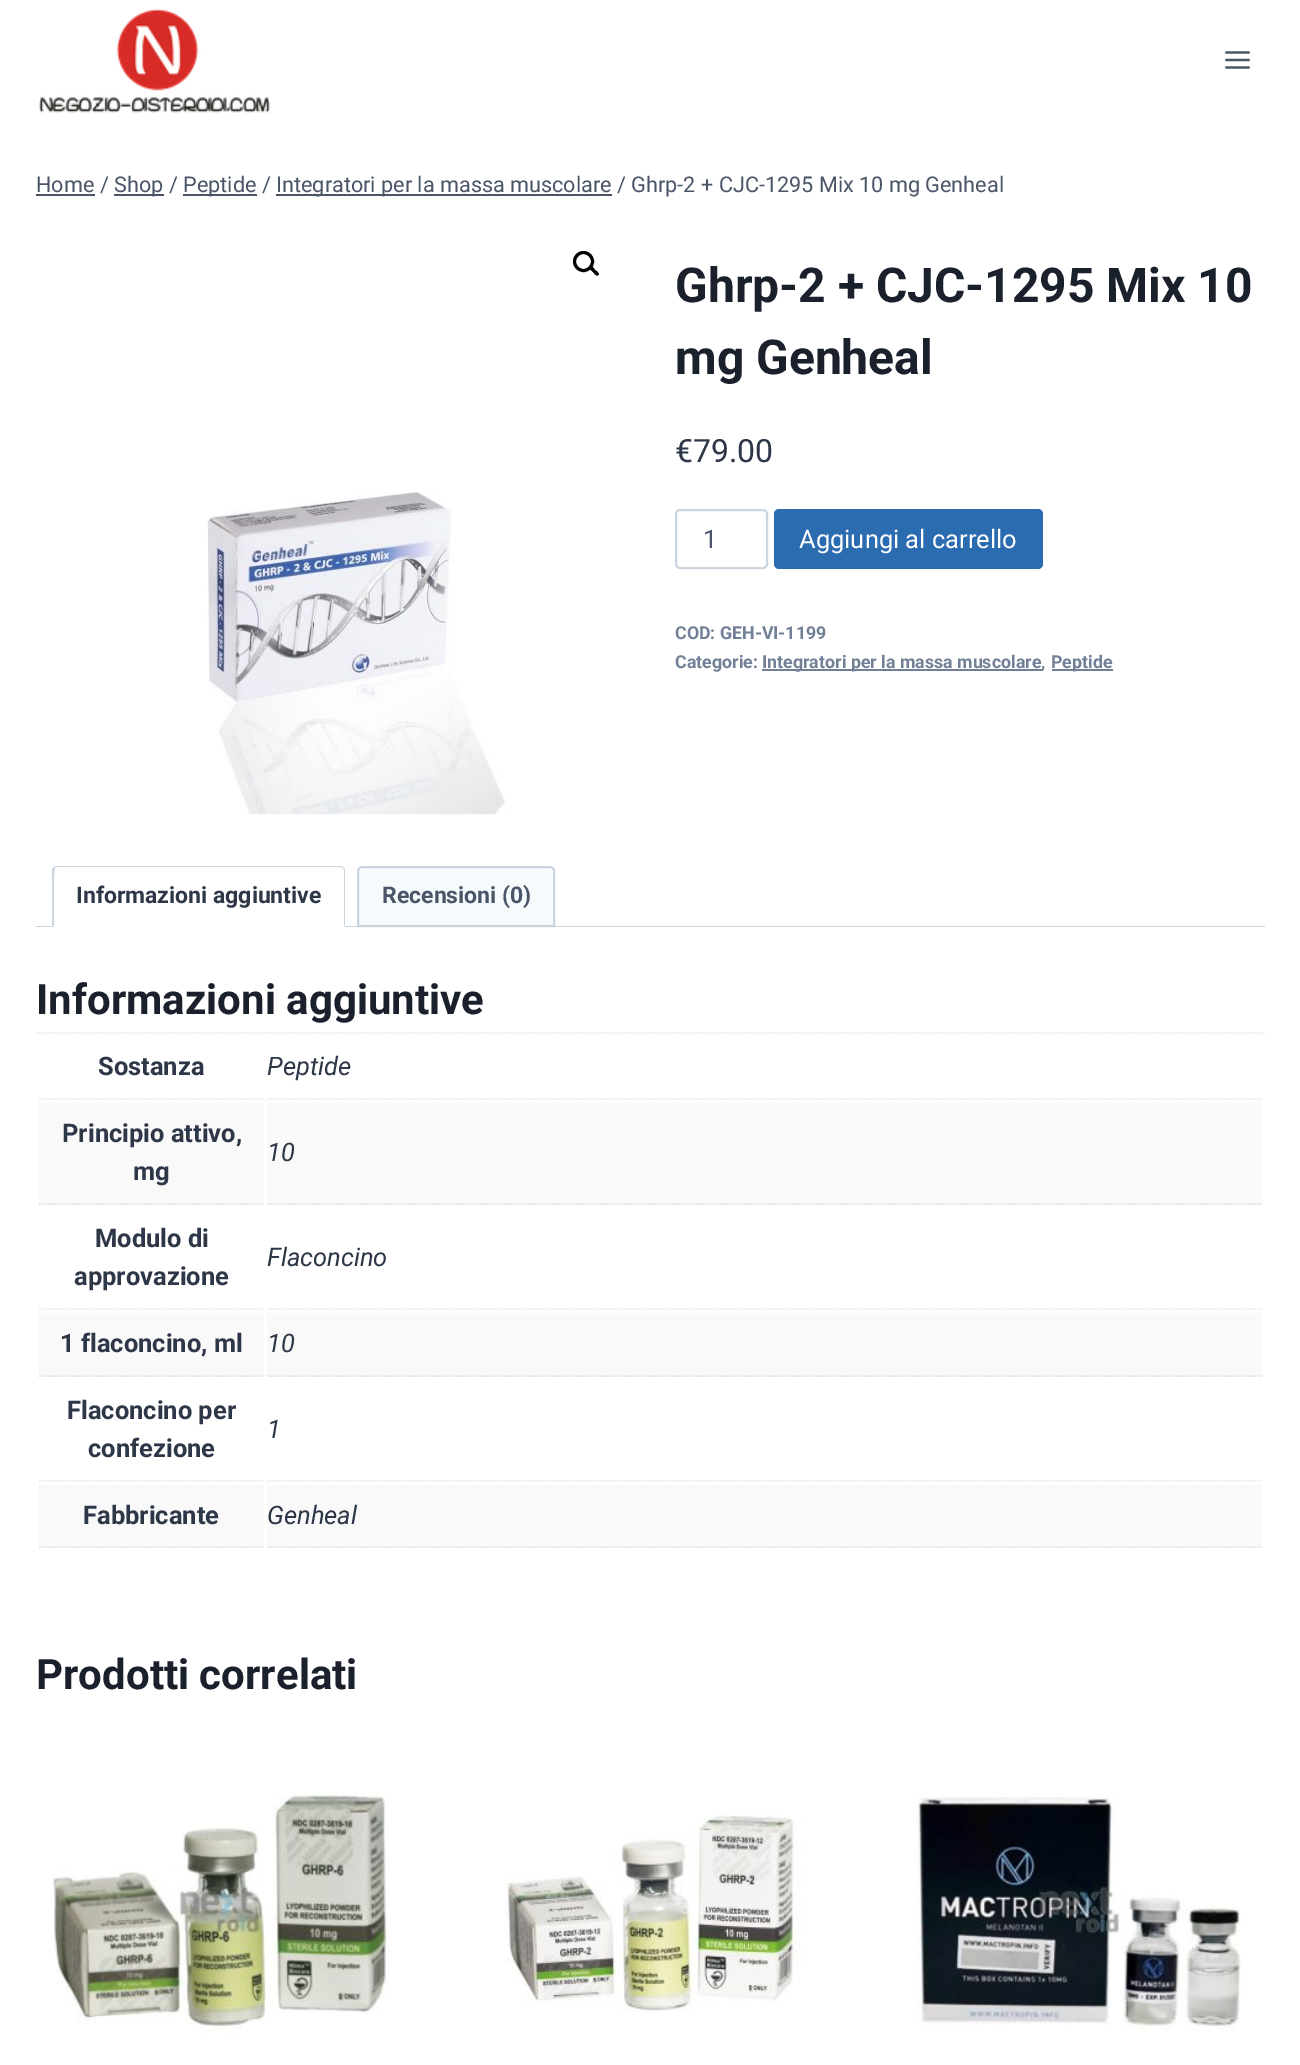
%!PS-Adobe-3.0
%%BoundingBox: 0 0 1300 2065
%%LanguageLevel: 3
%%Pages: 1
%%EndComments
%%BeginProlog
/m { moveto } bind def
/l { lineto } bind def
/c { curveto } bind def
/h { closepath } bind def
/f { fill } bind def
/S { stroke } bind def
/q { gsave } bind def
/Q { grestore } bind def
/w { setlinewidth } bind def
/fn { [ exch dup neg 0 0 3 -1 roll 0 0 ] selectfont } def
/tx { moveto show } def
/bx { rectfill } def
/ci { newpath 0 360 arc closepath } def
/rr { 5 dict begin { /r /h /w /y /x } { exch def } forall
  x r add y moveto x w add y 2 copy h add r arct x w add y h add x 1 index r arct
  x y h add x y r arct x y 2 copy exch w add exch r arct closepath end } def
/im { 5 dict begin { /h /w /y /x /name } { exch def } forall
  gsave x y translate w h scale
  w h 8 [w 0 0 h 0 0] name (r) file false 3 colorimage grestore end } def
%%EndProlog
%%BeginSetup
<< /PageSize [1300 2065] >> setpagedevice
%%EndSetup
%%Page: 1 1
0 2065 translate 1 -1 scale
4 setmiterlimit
1 setgray
0 0 1300 2065 bx
(image0.raw) 39 8 232 105 im
(image1.raw) 1225 51 25 18 im
/Roboto-Regular 21.65 fn
0.29 0.333 0.408 setrgbcolor
(Home /) 36 192 tx
36 194 59 2 bx
114 194 50 2 bx
(Shop /) 114 192 tx
183 194 74 2 bx
(Peptide /) 183 192 tx
276 194 336 2 bx
(Integratori per la massa muscolare / Ghrp-2 + CJC-1295 Mix 10 mg Genheal) 276 192 tx
0 setgray
3 w
583.5 261.5 9 ci S
590 266.5 m 591.5 265 594.5 269 595 270 c 596 270.5 600 273.5 598.5 275 c 596.5 277 594 273 593 272 c 592 271 588 268.5 590 266.5 c h f
(image2.raw) 207 492 299 323 im
/Roboto-Bold 48 fn
0.102 0.125 0.173 setrgbcolor
(Ghrp-2 + CJC-1295 Mix 10) 675 302 tx
(mg Genheal) 675 374 tx
/Roboto-Regular 32 fn
0.176 0.216 0.282 setrgbcolor
(€79.00) 675 462 tx
0.796 0.835 0.878 setrgbcolor
2 w
676 510 91 58 4 rr S
/Roboto-Regular 25.5 fn
0.29 0.333 0.408 setrgbcolor
(1) 703 548 tx
0.169 0.424 0.69 setrgbcolor
774 509 269 60 5 rr f
1 setgray
(Aggiungi al carrello) 799 548 tx
/Roboto-Bold 17.8 fn
0.443 0.502 0.588 setrgbcolor
(COD: GEH-VI-1199) 675 639 tx
(Categorie:) 675 668 tx
762 669 281 2 bx
(Integratori per la massa muscolare,) 762 668 tx
1052 669 61 2 bx
(Peptide) 1051 668 tx
0.969 0.98 0.988 setrgbcolor
362 867 m 550 867 l 552 867 554 869 554 871 c 554 926 l 358 926 l 358 871 l 358 869 360 867 362 867 c h q f Q
0.796 0.835 0.878 setrgbcolor
S
36 926 1229 1 bx
1 setgray
58 866 m 340 866 l 343 866 345 868 345 871 c 345 927 l 53 927 l 53 871 l 53 868 55 866 58 866 c h f
0.796 0.835 0.878 setrgbcolor
57 866 m 54 867 l 55 868 l 57 867 l 340 867 l 343 868 l 343 867 l 340 866 l h f
345 927 m 345 869 l 343 867 l 343 868 l 344 870 l 344 926 l h f
1 setgray
345 927 m 344 926 l 54 926 l 52 927 l h f
0.796 0.835 0.878 setrgbcolor
52 927 m 54 926 l 54 919 53 870 55 868 c 54 867 l 52 869 l h f
/Roboto-Bold 23 fn
0.176 0.216 0.282 setrgbcolor
(Informazioni aggiuntive) 76 903 tx
0.29 0.333 0.408 setrgbcolor
(Recensioni \(0\)) 382 903 tx
/Roboto-Bold 42 fn
0.102 0.125 0.173 setrgbcolor
(Informazioni aggiuntive) 36 1014 tx
0.902 setgray
1.5 w
[1.5 1.5] 0 setdash
36 1033 m 1264.5 1033 l S
39 1099 m 264 1099 l S
/Roboto-Bold 25.5 fn
0.176 0.216 0.282 setrgbcolor
(Sostanza) 98 1075 tx
0.902 setgray
267 1099 m 1261.5 1099 l S
/Roboto-Italic 25.5 fn
0.176 0.216 0.282 setrgbcolor
(Peptide) 267 1075 tx
0.976 setgray
39 1103 225 102 bx
0.878 setgray
39 1204 m 264 1204 l S
/Roboto-Bold 25.5 fn
0.176 0.216 0.282 setrgbcolor
(Principio attivo,) 62 1142 tx
(mg) 133 1180 tx
0.976 setgray
267 1103 995 102 bx
0.878 setgray
267 1204 m 1261.5 1204 l S
/Roboto-Italic 25.5 fn
0.176 0.216 0.282 setrgbcolor
(10) 267 1161 tx
0.902 setgray
39 1309 m 264 1309 l S
/Roboto-Bold 25.5 fn
0.176 0.216 0.282 setrgbcolor
(Modulo di) 95 1247 tx
(approvazione) 74 1285 tx
0.902 setgray
267 1309 m 1261.5 1309 l S
/Roboto-Italic 25.5 fn
0.176 0.216 0.282 setrgbcolor
(Flaconcino) 267 1266 tx
0.976 setgray
39 1313 225 64 bx
0.878 setgray
39 1376 m 264 1376 l S
/Roboto-Bold 25.5 fn
0.176 0.216 0.282 setrgbcolor
(1 flaconcino, ml) 60 1352 tx
0.976 setgray
267 1313 995 64 bx
0.878 setgray
267 1376 m 1261.5 1376 l S
/Roboto-Italic 25.5 fn
0.176 0.216 0.282 setrgbcolor
(10) 267 1352 tx
0.902 setgray
39 1481 m 264 1481 l S
/Roboto-Bold 25.5 fn
0.176 0.216 0.282 setrgbcolor
(Flaconcino per) 67 1419 tx
(confezione) 88 1457 tx
0.902 setgray
267 1481 m 1261.5 1481 l S
/Roboto-Italic 25.5 fn
0.176 0.216 0.282 setrgbcolor
(1) 267 1438 tx
0.976 setgray
39 1485 225 63 bx
0.878 setgray
39 1547 m 264 1547 l S
/Roboto-Bold 25.5 fn
0.176 0.216 0.282 setrgbcolor
(Fabbricante) 83 1524 tx
0.976 setgray
267 1485 995 63 bx
0.878 setgray
267 1547 m 1261.5 1547 l S
/Roboto-Italic 25.5 fn
0.176 0.216 0.282 setrgbcolor
(Genheal) 267 1524 tx
/Roboto-Bold 42 fn
0.102 0.125 0.173 setrgbcolor
(Prodotti correlati) 36 1689 tx
(image3.raw) 51 1792 339 241 im
(image4.raw) 504 1812 297 200 im
(image5.raw) 915 1797 326 235 im
showpage
%%EOF
